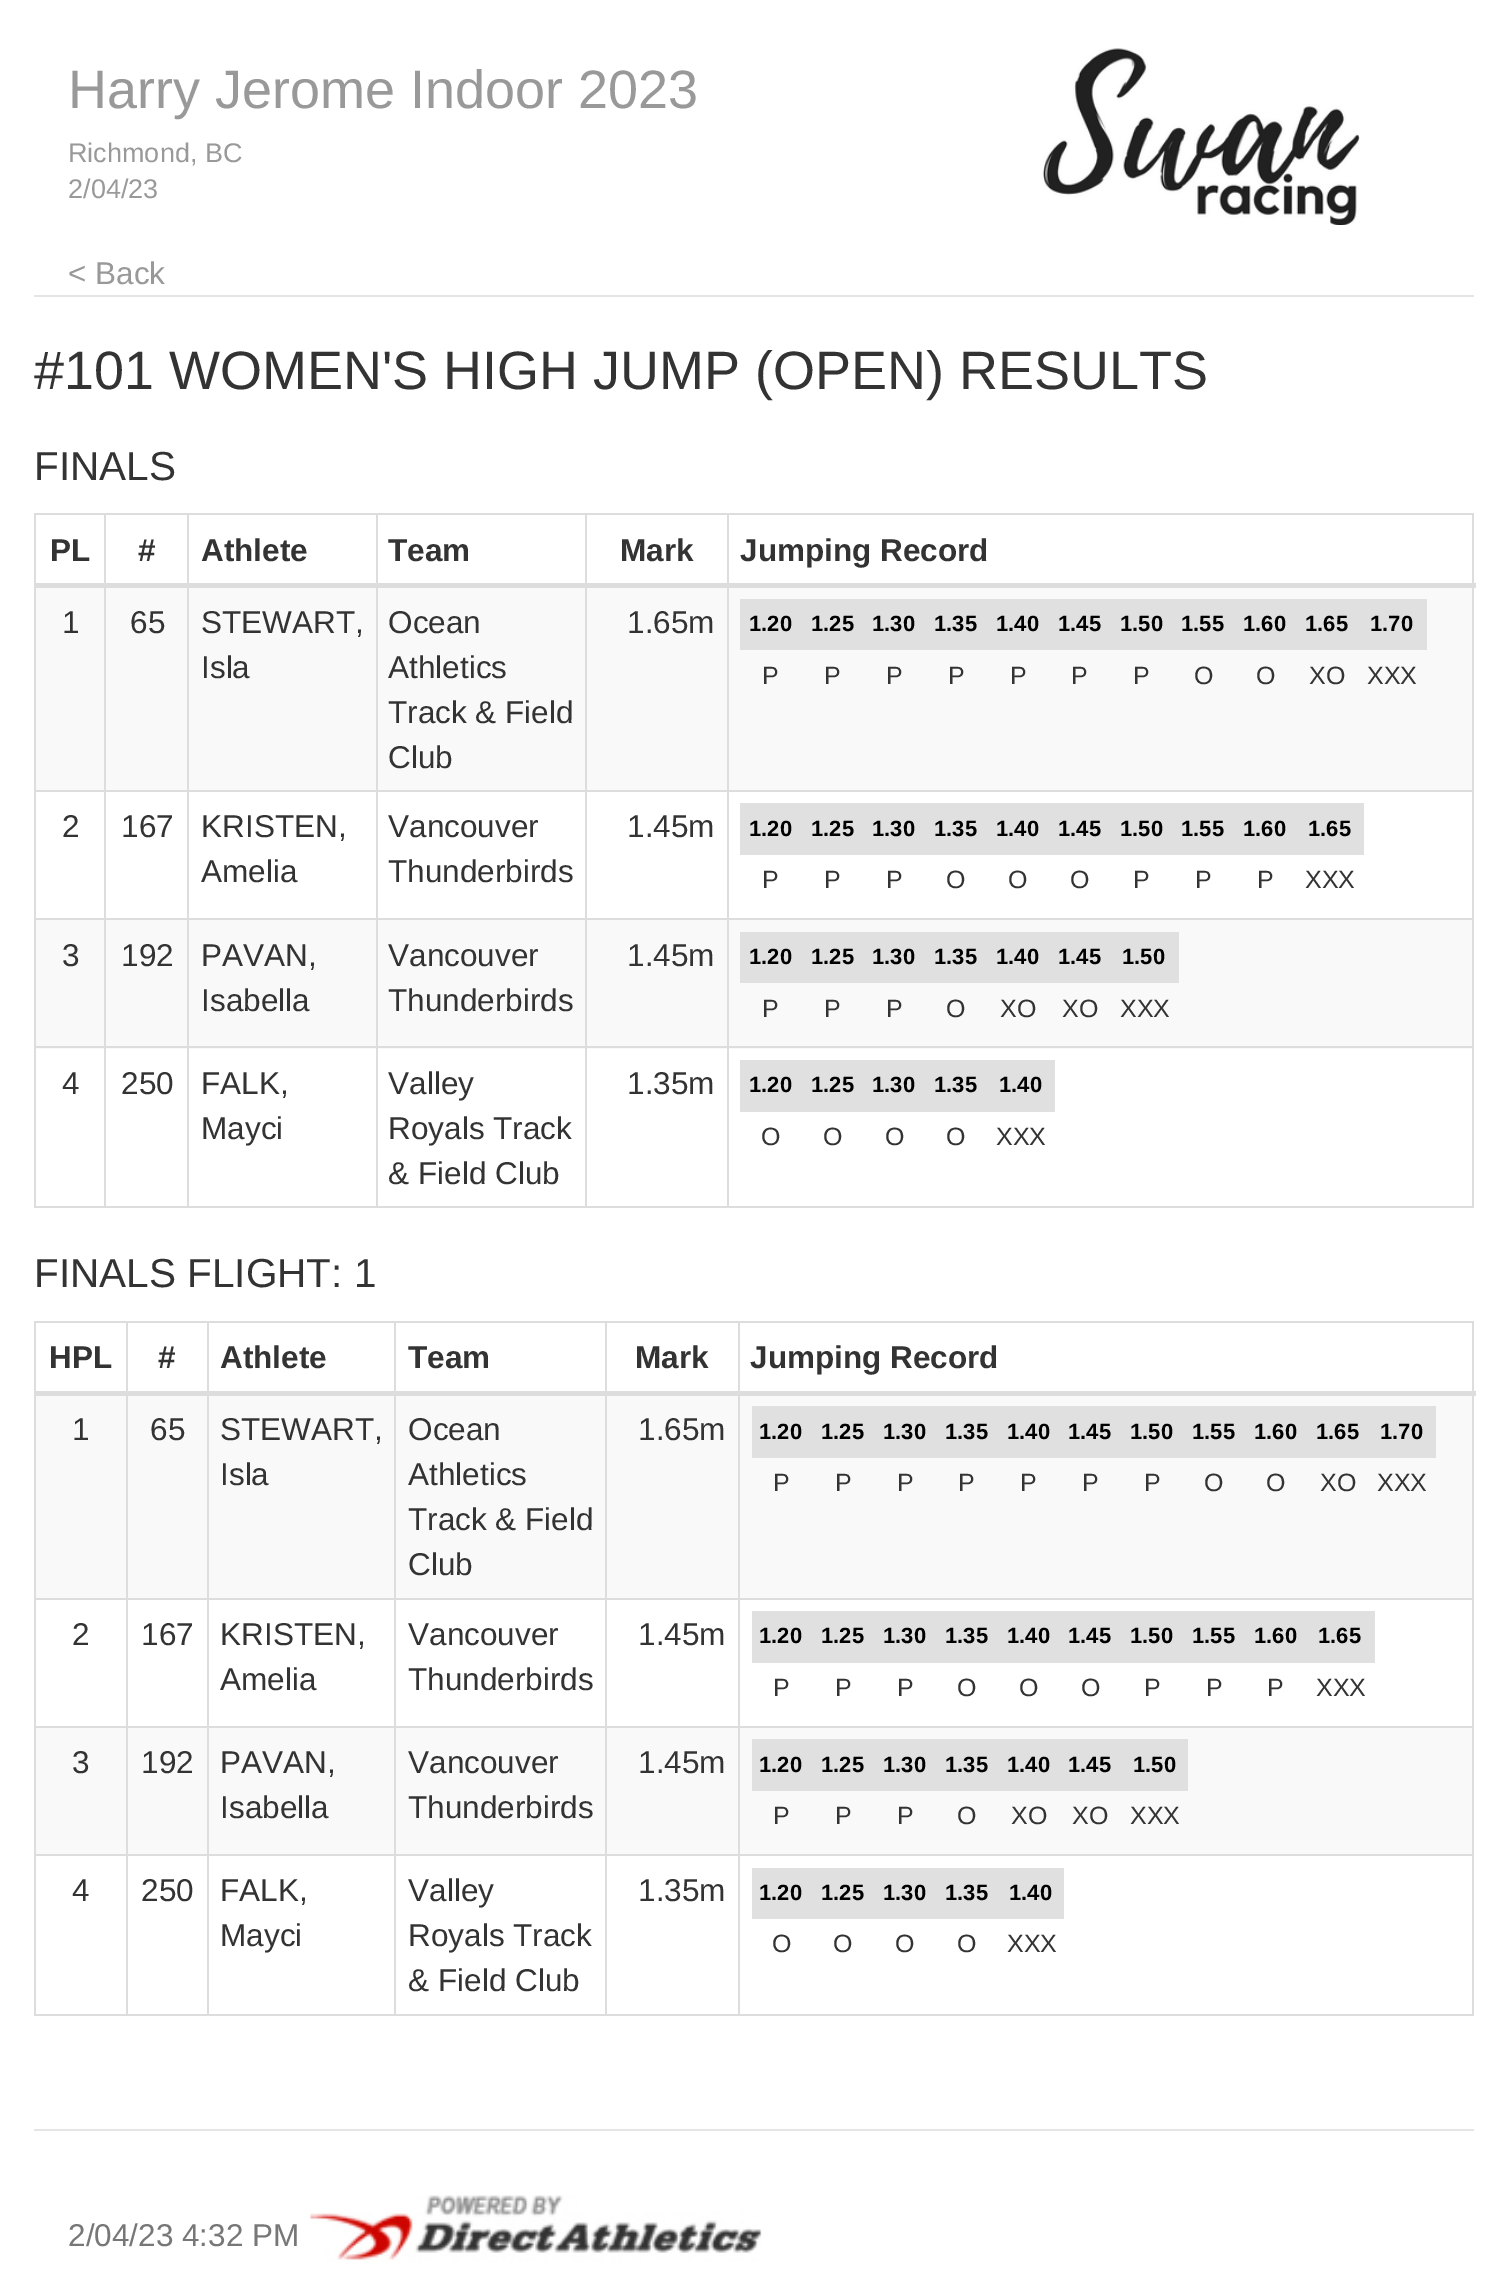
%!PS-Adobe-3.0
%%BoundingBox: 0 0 1507 2287
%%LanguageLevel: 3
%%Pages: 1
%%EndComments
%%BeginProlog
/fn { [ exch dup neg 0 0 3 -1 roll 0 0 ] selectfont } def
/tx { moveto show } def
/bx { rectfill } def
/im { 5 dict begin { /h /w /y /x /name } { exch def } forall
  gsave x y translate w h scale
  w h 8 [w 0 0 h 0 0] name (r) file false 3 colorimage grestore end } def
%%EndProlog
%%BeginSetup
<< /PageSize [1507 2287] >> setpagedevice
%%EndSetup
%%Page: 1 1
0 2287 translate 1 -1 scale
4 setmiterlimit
1 setgray
0 0 1507 2287 bx
0.898 setgray
34 295 1440 2 bx
/LiberationSans-Regular 54 fn
0.6 setgray
(Harry Jerome Indoor 2023) 68 108 tx
/LiberationSans-Regular 27 fn
(Richmond, BC) 68 162 tx
(2/04/23) 68 198 tx
(image0.raw) 1042 48 318 177 im
/LiberationSans-Regular 31.5 fn
(< Back) 68 284 tx
/LiberationSans-Regular 54 fn
0.2 setgray
(#101 WOMEN'S HIGH JUMP \(OPEN\) RESULTS) 34 389 tx
/LiberationSans-Regular 40.5 fn
(FINALS) 34 480 tx
0.867 setgray
34 513 1440 2 bx
1472 513 2 695 bx
34 1206 1440 2 bx
34 513 2 695 bx
/LiberationSans-Bold 31.5 fn
0.2 setgray
(PL) 50 561 tx
(#) 138 561 tx
(Athlete) 201 561 tx
(Team) 388 561 tx
(Mark) 620 561 tx
0.867 setgray
727 790 747 2 bx
727 918 747 2 bx
0.976 setgray
587 920 140 129 bx
729 920 743 129 bx
0.867 setgray
727 1046 747 2 bx
727 1046 2 162 bx
585 1046 144 2 bx
727 918 2 131 bx
585 918 144 2 bx
727 790 2 130 bx
585 790 144 2 bx
0.976 setgray
378 920 207 129 bx
0.867 setgray
585 1046 2 162 bx
376 1046 211 2 bx
585 918 2 131 bx
376 918 211 2 bx
585 790 2 130 bx
376 790 211 2 bx
0.976 setgray
189 920 187 129 bx
0.867 setgray
376 1046 2 162 bx
187 1046 191 2 bx
376 918 2 131 bx
187 918 191 2 bx
376 790 2 130 bx
187 790 191 2 bx
0.976 setgray
106 920 81 129 bx
0.867 setgray
187 1046 2 162 bx
104 1046 85 2 bx
187 918 2 131 bx
104 918 85 2 bx
187 790 2 130 bx
104 790 85 2 bx
0.976 setgray
36 920 68 129 bx
0.867 setgray
104 1046 2 162 bx
34 1046 72 2 bx
104 918 2 131 bx
34 918 72 2 bx
104 790 2 130 bx
34 790 72 2 bx
104 513 2 279 bx
187 513 2 279 bx
376 513 2 279 bx
585 513 2 279 bx
727 513 2 279 bx
34 583 1442 5 bx
0.2 setgray
(Jumping Record) 740 561 tx
0.976 setgray
36 588 68 202 bx
/LiberationSans-Regular 31.5 fn
0.2 setgray
(1) 62 633 tx
0.976 setgray
106 588 81 202 bx
0.2 setgray
(65) 130 633 tx
0.976 setgray
189 588 187 202 bx
0.2 setgray
(STEWART,) 201 633 tx
(Isla) 201 678 tx
0.976 setgray
378 588 207 202 bx
0.2 setgray
(Ocean) 388 633 tx
(Athletics) 388 678 tx
(Track & Field) 388 723 tx
(Club) 388 768 tx
0.976 setgray
587 588 140 202 bx
0.2 setgray
(1.65m) 627 633 tx
0.976 setgray
729 588 743 202 bx
0.878 setgray
740 599 687 51 bx
/LiberationSans-Bold 22 fn
0 setgray
(1.20) 749 631 tx
(1.25) 811 631 tx
(1.30) 872 631 tx
(1.35) 934 631 tx
(1.40) 996 631 tx
(1.45) 1058 631 tx
(1.50) 1120 631 tx
(1.55) 1181 631 tx
(1.60) 1243 631 tx
(1.65) 1305 631 tx
(1.70) 1370 631 tx
/LiberationSans-Regular 25 fn
0.2 setgray
(P) 762 684 tx
(P) 824 684 tx
(P) 886 684 tx
(P) 948 684 tx
(P) 1010 684 tx
(P) 1071 684 tx
(P) 1133 684 tx
(O) 1194 684 tx
(O) 1256 684 tx
(XO) 1309 684 tx
(XXX) 1367 684 tx
/LiberationSans-Regular 31.5 fn
(2) 62 837 tx
(167) 121 837 tx
(KRISTEN,) 201 837 tx
(Amelia) 201 882 tx
(Vancouver) 388 837 tx
(Thunderbirds) 388 882 tx
(1.45m) 627 837 tx
0.878 setgray
740 803 624 52 bx
/LiberationSans-Bold 22 fn
0 setgray
(1.20) 749 836 tx
(1.25) 811 836 tx
(1.30) 872 836 tx
(1.35) 934 836 tx
(1.40) 996 836 tx
(1.45) 1058 836 tx
(1.50) 1120 836 tx
(1.55) 1181 836 tx
(1.60) 1243 836 tx
(1.65) 1308 836 tx
/LiberationSans-Regular 25 fn
0.2 setgray
(P) 762 888 tx
(P) 824 888 tx
(P) 886 888 tx
(O) 946 888 tx
(O) 1008 888 tx
(O) 1070 888 tx
(P) 1133 888 tx
(P) 1195 888 tx
(P) 1257 888 tx
(XXX) 1305 888 tx
/LiberationSans-Regular 31.5 fn
(3) 62 966 tx
(192) 121 966 tx
(PAVAN,) 201 966 tx
(Isabella) 201 1011 tx
(Vancouver) 388 966 tx
(Thunderbirds) 388 1011 tx
(1.45m) 627 966 tx
0.878 setgray
740 932 439 51 bx
/LiberationSans-Bold 22 fn
0 setgray
(1.20) 749 964 tx
(1.25) 811 964 tx
(1.30) 872 964 tx
(1.35) 934 964 tx
(1.40) 996 964 tx
(1.45) 1058 964 tx
(1.50) 1122 964 tx
/LiberationSans-Regular 25 fn
0.2 setgray
(P) 762 1017 tx
(P) 824 1017 tx
(P) 886 1017 tx
(O) 946 1017 tx
(XO) 1000 1017 tx
(XO) 1062 1017 tx
(XXX) 1120 1017 tx
/LiberationSans-Regular 31.5 fn
(4) 62 1094 tx
(250) 121 1094 tx
(FALK,) 201 1094 tx
(Mayci) 201 1139 tx
(Valley) 388 1094 tx
(Royals Track) 388 1139 tx
(& Field Club) 388 1184 tx
(1.35m) 627 1094 tx
0.878 setgray
740 1060 315 52 bx
/LiberationSans-Bold 22 fn
0 setgray
(1.20) 749 1092 tx
(1.25) 811 1092 tx
(1.30) 872 1092 tx
(1.35) 934 1092 tx
(1.40) 999 1092 tx
/LiberationSans-Regular 25 fn
0.2 setgray
(O) 761 1145 tx
(O) 823 1145 tx
(O) 885 1145 tx
(O) 946 1145 tx
(XXX) 996 1145 tx
/LiberationSans-Regular 40.5 fn
(FINALS FLIGHT: 1) 34 1287 tx
0.867 setgray
34 1321 1440 2 bx
1472 1321 2 695 bx
34 2014 1440 2 bx
34 1321 2 695 bx
/LiberationSans-Bold 31.5 fn
0.2 setgray
(HPL) 49 1368 tx
(#) 158 1368 tx
(Athlete) 220 1368 tx
(Team) 408 1368 tx
(Mark) 635 1368 tx
0.867 setgray
738 1598 736 2 bx
738 1726 736 2 bx
738 1854 736 2 bx
738 1854 2 162 bx
605 1854 135 2 bx
738 1726 2 130 bx
605 1726 135 2 bx
738 1598 2 130 bx
605 1598 135 2 bx
605 1854 2 162 bx
394 1854 214 2 bx
605 1726 2 130 bx
394 1726 214 2 bx
605 1598 2 130 bx
394 1598 214 2 bx
394 1854 2 162 bx
207 1854 189 2 bx
394 1726 2 130 bx
207 1726 189 2 bx
394 1598 2 130 bx
207 1598 189 2 bx
207 1854 2 162 bx
126 1854 83 2 bx
207 1726 2 130 bx
126 1726 83 2 bx
207 1598 2 130 bx
126 1598 83 2 bx
126 1854 2 162 bx
34 1854 94 2 bx
126 1726 2 130 bx
34 1726 94 2 bx
126 1598 2 130 bx
34 1598 94 2 bx
126 1321 2 279 bx
207 1321 2 279 bx
394 1321 2 279 bx
605 1321 2 279 bx
738 1321 2 279 bx
34 1391 1442 5 bx
0.2 setgray
(Jumping Record) 750 1368 tx
0.976 setgray
36 1396 90 202 bx
/LiberationSans-Regular 31.5 fn
0.2 setgray
(1) 72 1440 tx
0.976 setgray
128 1396 79 202 bx
0.2 setgray
(65) 150 1440 tx
0.976 setgray
209 1396 185 202 bx
0.2 setgray
(STEWART,) 220 1440 tx
(Isla) 220 1485 tx
0.976 setgray
396 1396 209 202 bx
0.2 setgray
(Ocean) 408 1440 tx
(Athletics) 408 1485 tx
(Track & Field) 408 1530 tx
(Club) 408 1575 tx
0.976 setgray
607 1396 131 202 bx
0.2 setgray
(1.65m) 638 1440 tx
0.976 setgray
740 1396 732 202 bx
0.878 setgray
752 1406 684 52 bx
/LiberationSans-Bold 22 fn
0 setgray
(1.20) 759 1439 tx
(1.25) 821 1439 tx
(1.30) 883 1439 tx
(1.35) 945 1439 tx
(1.40) 1007 1439 tx
(1.45) 1068 1439 tx
(1.50) 1130 1439 tx
(1.55) 1192 1439 tx
(1.60) 1254 1439 tx
(1.65) 1316 1439 tx
(1.70) 1380 1439 tx
/LiberationSans-Regular 25 fn
0.2 setgray
(P) 773 1491 tx
(P) 835 1491 tx
(P) 897 1491 tx
(P) 958 1491 tx
(P) 1020 1491 tx
(P) 1082 1491 tx
(P) 1144 1491 tx
(O) 1204 1491 tx
(O) 1266 1491 tx
(XO) 1320 1491 tx
(XXX) 1377 1491 tx
/LiberationSans-Regular 31.5 fn
(2) 72 1645 tx
(167) 141 1645 tx
(KRISTEN,) 220 1645 tx
(Amelia) 220 1690 tx
(Vancouver) 408 1645 tx
(Thunderbirds) 408 1690 tx
(1.45m) 638 1645 tx
0.878 setgray
752 1611 623 52 bx
/LiberationSans-Bold 22 fn
0 setgray
(1.20) 759 1643 tx
(1.25) 821 1643 tx
(1.30) 883 1643 tx
(1.35) 945 1643 tx
(1.40) 1007 1643 tx
(1.45) 1068 1643 tx
(1.50) 1130 1643 tx
(1.55) 1192 1643 tx
(1.60) 1254 1643 tx
(1.65) 1318 1643 tx
/LiberationSans-Regular 25 fn
0.2 setgray
(P) 773 1696 tx
(P) 835 1696 tx
(P) 897 1696 tx
(O) 957 1696 tx
(O) 1019 1696 tx
(O) 1081 1696 tx
(P) 1144 1696 tx
(P) 1206 1696 tx
(P) 1267 1696 tx
(XXX) 1316 1696 tx
0.976 setgray
36 1728 90 126 bx
/LiberationSans-Regular 31.5 fn
0.2 setgray
(3) 72 1773 tx
0.976 setgray
128 1728 79 126 bx
0.2 setgray
(192) 141 1773 tx
0.976 setgray
209 1728 185 126 bx
0.2 setgray
(PAVAN,) 220 1773 tx
(Isabella) 220 1818 tx
0.976 setgray
396 1728 209 126 bx
0.2 setgray
(Vancouver) 408 1773 tx
(Thunderbirds) 408 1818 tx
0.976 setgray
607 1728 131 126 bx
0.2 setgray
(1.45m) 638 1773 tx
0.976 setgray
740 1728 732 126 bx
0.878 setgray
752 1739 436 52 bx
/LiberationSans-Bold 22 fn
0 setgray
(1.20) 759 1772 tx
(1.25) 821 1772 tx
(1.30) 883 1772 tx
(1.35) 945 1772 tx
(1.40) 1007 1772 tx
(1.45) 1068 1772 tx
(1.50) 1133 1772 tx
/LiberationSans-Regular 25 fn
0.2 setgray
(P) 773 1824 tx
(P) 835 1824 tx
(P) 897 1824 tx
(O) 957 1824 tx
(XO) 1011 1824 tx
(XO) 1072 1824 tx
(XXX) 1130 1824 tx
/LiberationSans-Regular 31.5 fn
(4) 72 1901 tx
(250) 141 1901 tx
(FALK,) 220 1901 tx
(Mayci) 220 1946 tx
(Valley) 408 1901 tx
(Royals Track) 408 1946 tx
(& Field Club) 408 1991 tx
(1.35m) 638 1901 tx
0.878 setgray
752 1868 312 51 bx
/LiberationSans-Bold 22 fn
0 setgray
(1.20) 759 1900 tx
(1.25) 821 1900 tx
(1.30) 883 1900 tx
(1.35) 945 1900 tx
(1.40) 1009 1900 tx
/LiberationSans-Regular 25 fn
0.2 setgray
(O) 772 1952 tx
(O) 833 1952 tx
(O) 895 1952 tx
(O) 957 1952 tx
(XXX) 1007 1952 tx
0.898 setgray
34 2129 1440 2 bx
/LiberationSans-Regular 31.5 fn
0.467 setgray
(2/04/23 4:32 PM) 68 2246 tx
(image1.raw) 310 2195 452 68 im
showpage
%%EOF
